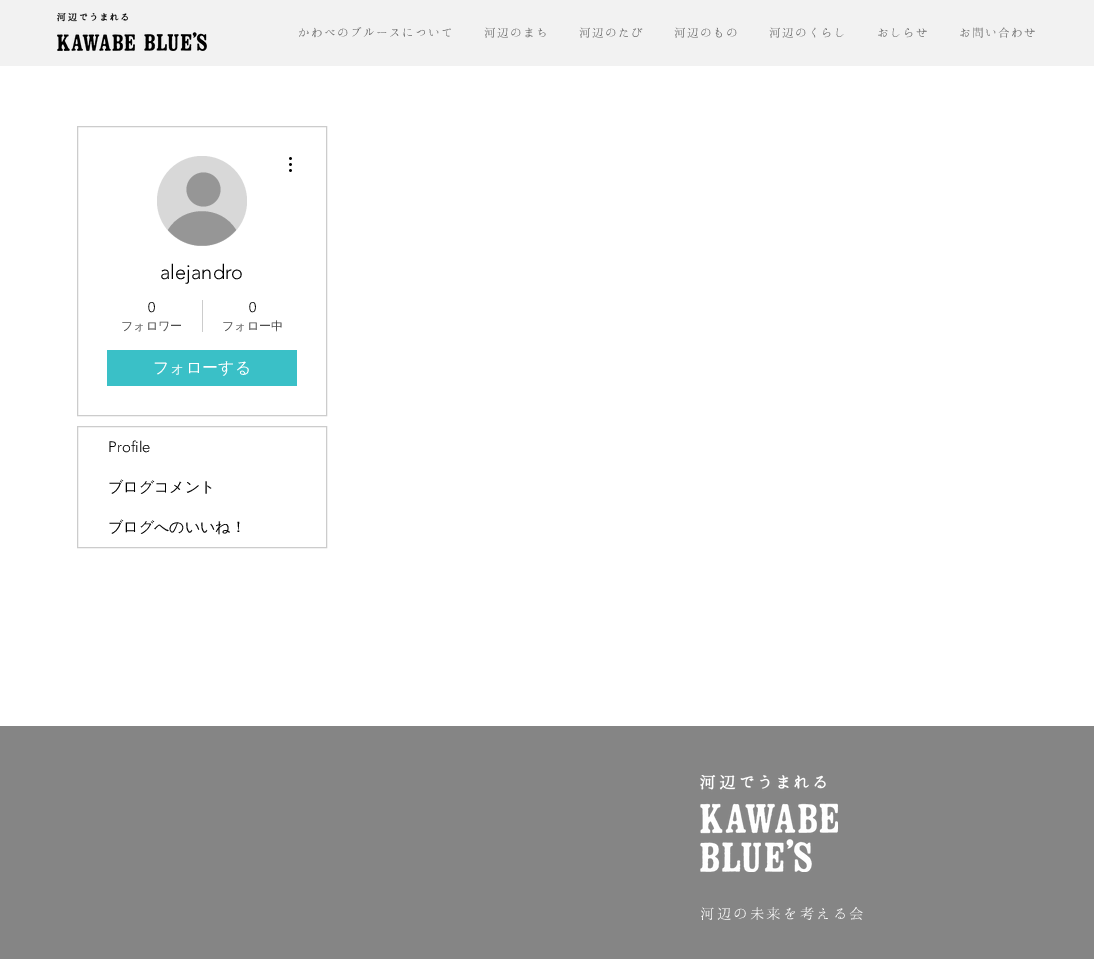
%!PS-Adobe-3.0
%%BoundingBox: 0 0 1094 959
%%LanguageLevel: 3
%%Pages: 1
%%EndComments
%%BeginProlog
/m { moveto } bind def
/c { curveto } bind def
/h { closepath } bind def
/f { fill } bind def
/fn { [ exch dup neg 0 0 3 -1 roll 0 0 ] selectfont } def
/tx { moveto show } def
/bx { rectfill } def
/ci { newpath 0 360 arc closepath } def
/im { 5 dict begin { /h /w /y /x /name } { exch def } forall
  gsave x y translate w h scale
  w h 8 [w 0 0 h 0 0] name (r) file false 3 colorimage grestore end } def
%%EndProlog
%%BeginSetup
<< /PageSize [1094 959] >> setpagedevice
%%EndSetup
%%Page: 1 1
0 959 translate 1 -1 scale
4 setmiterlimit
1 setgray
0 0 1094 959 bx
0.949 setgray
0 0 1094 66 bx
(image0.raw) 57 13 150 38 im
/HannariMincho-Regular 13 fn
0.412 setgray
(かわべのブルースについて) 298 37 tx
(河辺のまち) 484 37 tx
(河辺のたび) 579 37 tx
(河辺のもの) 674 37 tx
(河辺のくらし) 769 37 tx
(おしらせ) 877 37 tx
(お問い合わせ) 959 37 tx
0.8 setgray
77.5 126.5 249 289 rectstroke
0.847 setgray
202 201 45 ci f
0.588 setgray
203.5 189.5 17 ci f
236 230 m 218 251 186 251 168 230 c 183 205 221 205 236 230 c h f
(image1.raw) 289 157 3 15 im
/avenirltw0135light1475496-Light 20 fn
0 setgray
(alejandro) 160 279 tx
/avenirltw0135light1475496-Light 14 fn
(0) 148 312 tx
/WenQuanYiZenHei-Medium 12 fn
0.302 setgray
(フォロワー) 121 330 tx
0.8 setgray
202 300 1 32 bx
/avenirltw0135light1475496-Light 14 fn
0 setgray
(0) 249 312 tx
/WenQuanYiZenHei-Medium 12 fn
0.302 setgray
(フォロー中) 222 330 tx
0.227 0.753 0.78 setrgbcolor
107 350 190 36 bx
/WenQuanYiZenHei-Medium 16 fn
1 setgray
(フォローする) 153 373 tx
0.8 setgray
77.5 426.5 249 121 rectstroke
/avenirltw0135light1475496-Light 15 fn
0 setgray
(Profile) 108 452 tx
/WenQuanYiZenHei-Medium 15 fn
(ブログコメント) 108 492 tx
(ブログへのいいね！) 108 532 tx
0.522 setgray
0 726 1094 233 bx
(image2.raw) 700 775 138 97 im
/HannariMincho-Regular 16 fn
1 setgray
700 919 m 0.6 0 (河辺の未来を考える会) ashow
showpage
%%EOF
